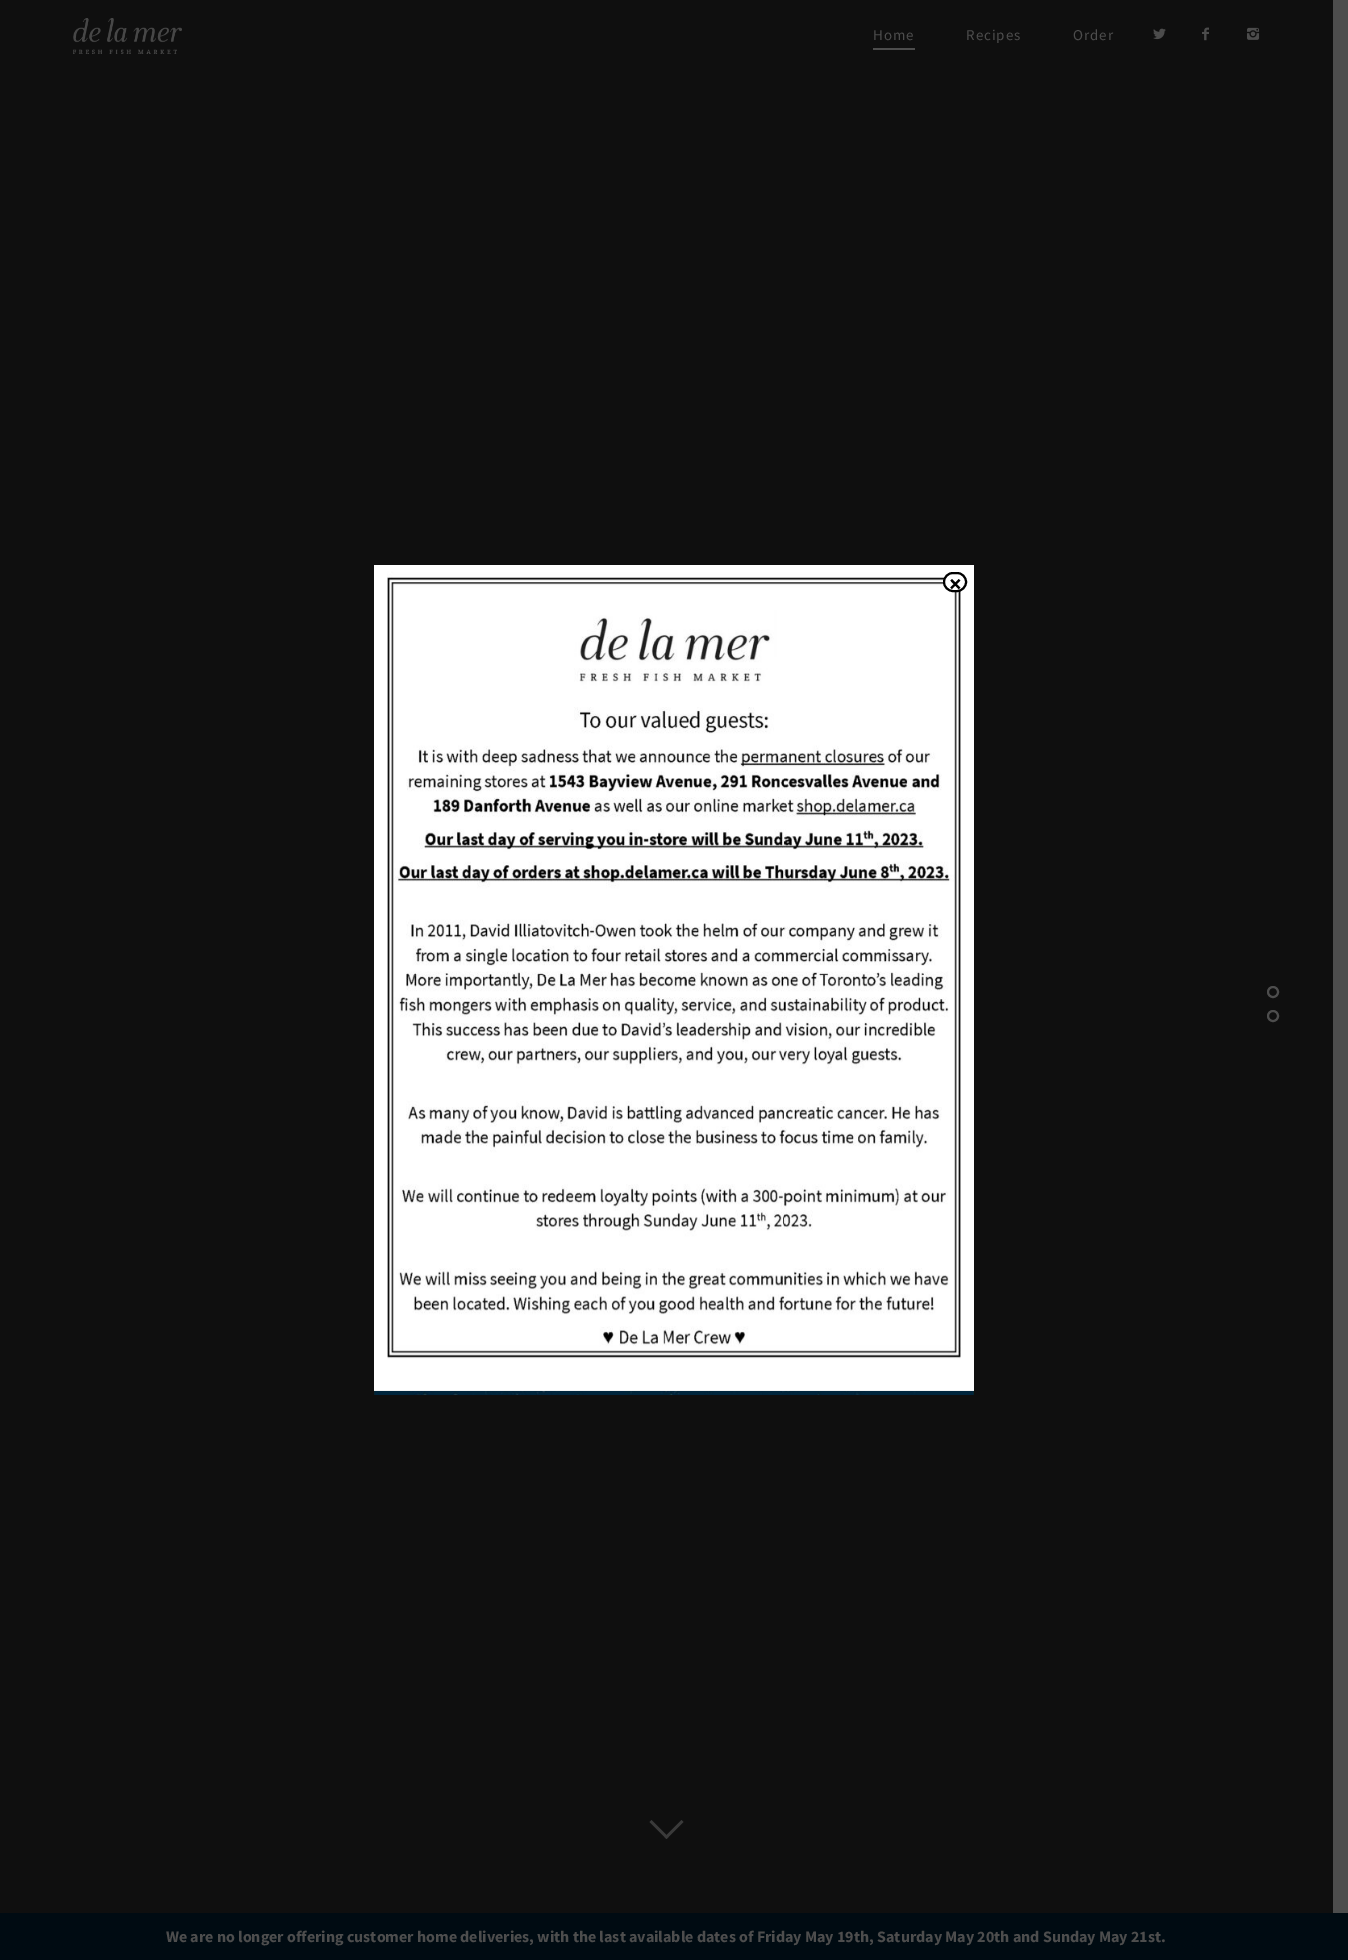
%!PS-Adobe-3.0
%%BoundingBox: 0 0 1348 1960
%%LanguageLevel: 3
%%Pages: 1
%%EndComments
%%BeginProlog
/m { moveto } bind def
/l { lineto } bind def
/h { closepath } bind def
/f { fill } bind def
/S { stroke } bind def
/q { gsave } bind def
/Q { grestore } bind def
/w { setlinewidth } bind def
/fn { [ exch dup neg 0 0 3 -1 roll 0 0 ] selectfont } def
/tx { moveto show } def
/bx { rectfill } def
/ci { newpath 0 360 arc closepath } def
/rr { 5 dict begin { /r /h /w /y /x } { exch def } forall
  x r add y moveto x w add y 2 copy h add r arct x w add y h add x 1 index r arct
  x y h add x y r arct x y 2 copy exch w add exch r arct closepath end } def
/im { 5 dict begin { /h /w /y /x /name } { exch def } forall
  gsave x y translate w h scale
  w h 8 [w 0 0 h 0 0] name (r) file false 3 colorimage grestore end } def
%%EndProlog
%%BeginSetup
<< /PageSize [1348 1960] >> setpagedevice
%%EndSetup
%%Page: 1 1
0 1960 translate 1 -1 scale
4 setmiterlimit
0.302 setgray
0 0 1348 1960 bx
0.059 setgray
0 0 1333 1913 bx
0.227 setgray
681.5 1820 m 683.5 1822 l 666.5 1839 l 664.5 1837 l h f
651.5 1820 m 668.5 1837 l 666.5 1839 l 649.5 1822 l h f
(image0.raw) 73 18 109 36 im
/SourceSansPro-Regular 15 fn
0.302 setgray
873 40 m 1 0 (Home) ashow
873 48 42 2 bx
966 40 m 1 0 (Recipes) ashow
1073 40 m 1 0 (Order) ashow
(image1.raw) 1153 28 13 12 im
(image2.raw) 1202 27 7 14 im
(image3.raw) 1247 27 13 13 im
(image4.raw) 374 1390 600 5 im
(image5.raw) 374 565 600 826 im
1 setgray
944 573 22 18 9 rr q f Q
0 setgray
2 w
S
/SourceSansPro-Bold 24 fn
(×) 949 592 tx
0.302 setgray
1273 992 5 ci S
1273 1016 5 ci S
0 0.043 0.071 setrgbcolor
0 1913 1348 47 bx
/SourceSansPro-Bold 16 fn
0.302 setgray
(We are no longer offering customer home deliveries, with the last available dates of Friday May 19th, Saturday May 20th and Sunday May 21st.) 166 1942 tx
showpage
%%EOF
